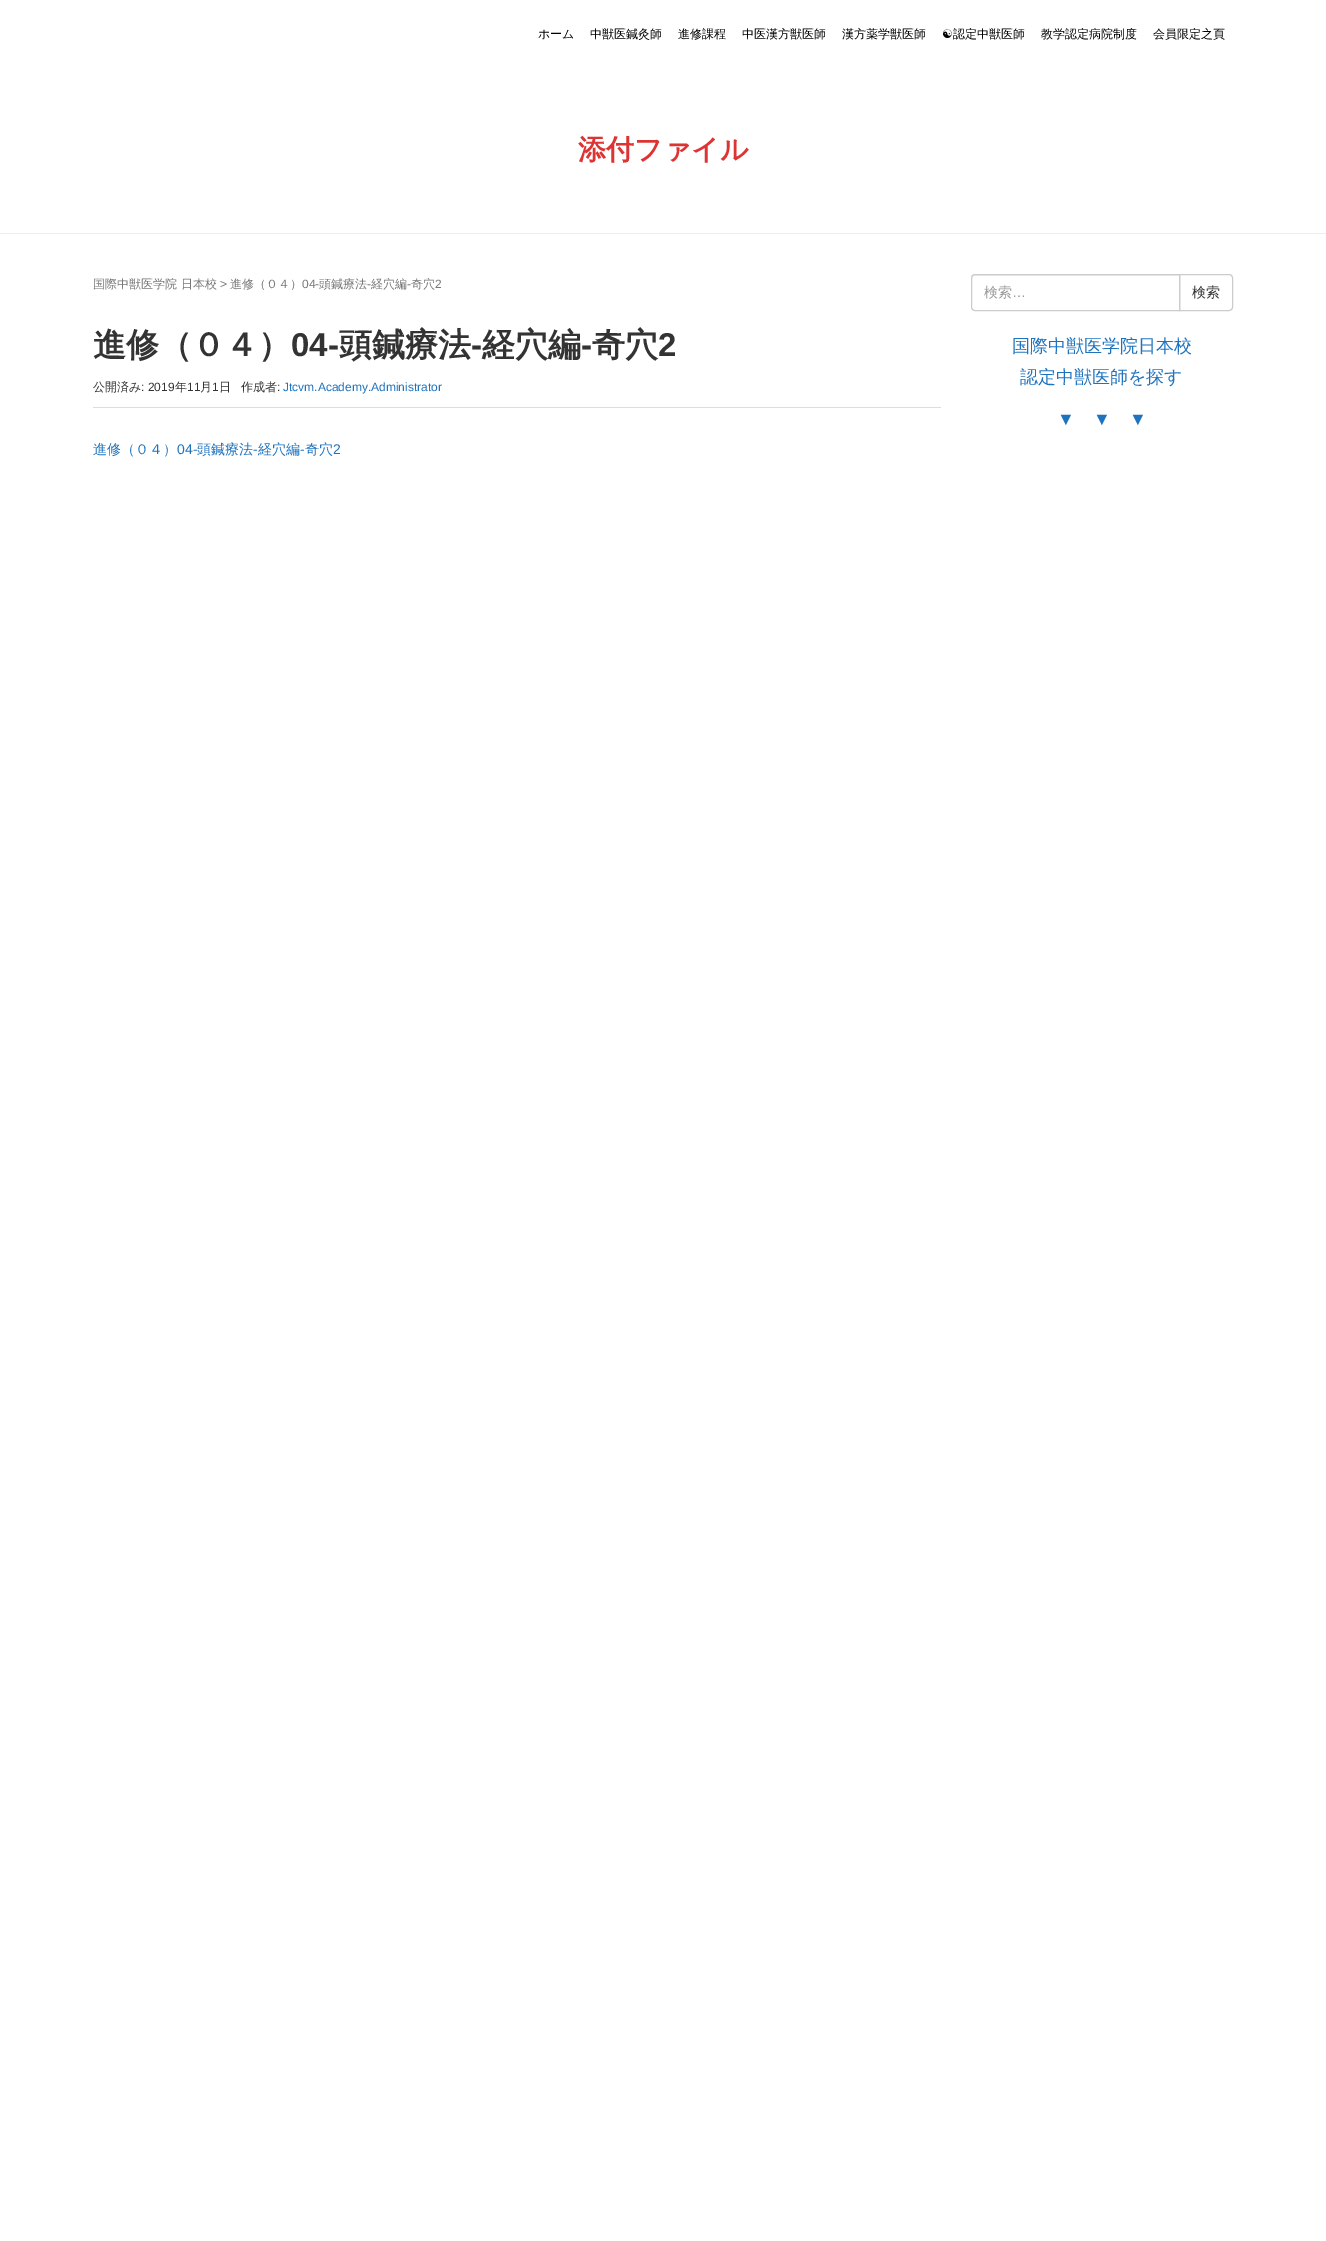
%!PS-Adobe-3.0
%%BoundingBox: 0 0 1326 2241
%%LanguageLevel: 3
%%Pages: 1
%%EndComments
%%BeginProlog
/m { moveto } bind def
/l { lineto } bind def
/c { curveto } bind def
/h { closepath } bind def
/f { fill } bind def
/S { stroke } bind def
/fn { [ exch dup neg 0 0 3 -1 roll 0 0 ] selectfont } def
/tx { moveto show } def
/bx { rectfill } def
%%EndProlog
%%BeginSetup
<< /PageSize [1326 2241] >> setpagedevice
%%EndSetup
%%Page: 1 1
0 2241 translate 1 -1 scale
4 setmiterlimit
1 setgray
0 0 1326 2241 bx
/WenQuanYiZenHei-Medium 12 fn
0 setgray
(ホーム) 538 38 tx
(中獣医鍼灸師) 590 38 tx
(進修課程) 678 38 tx
(中医漢方獣医師) 742 38 tx
(漢方薬学獣医師) 842 38 tx
/DejaVuSans-Regular 12 fn
(☯) 942 38 tx
/WenQuanYiZenHei-Medium 12 fn
(認定中獣医師) 953 38 tx
(教学認定病院制度) 1041 38 tx
(会員限定之頁) 1153 38 tx
0.933 setgray
0 233 1326 1 bx
/WenQuanYiZenHei-Bold 28 fn
0.867 0.2 0.2 setrgbcolor
(添付ファイル) 578 159 tx
/WenQuanYiZenHei-Medium 12 fn
0.467 setgray
(国際中獣医学院 日本校) 93 288 tx
/LiberationSans-Regular 12 fn
(>) 220 288 tx
/WenQuanYiZenHei-Medium 12 fn
(進修（０４）) 230 288 tx
/LiberationSans-Regular 12 fn
(04-) 302 288 tx
/WenQuanYiZenHei-Medium 12 fn
(頭鍼療法) 319 288 tx
/LiberationSans-Regular 12 fn
(-) 367 288 tx
/WenQuanYiZenHei-Medium 12 fn
(経穴編) 371 288 tx
/LiberationSans-Regular 12 fn
(-) 407 288 tx
/WenQuanYiZenHei-Medium 12 fn
(奇穴) 411 288 tx
/LiberationSans-Regular 12 fn
(2) 435 288 tx
/WenQuanYiZenHei-Bold 33 fn
0.2 setgray
(進修（０４）) 93 356 tx
/LiberationSans-Bold 33 fn
(04-) 291 356 tx
/WenQuanYiZenHei-Bold 33 fn
(頭鍼療法) 339 356 tx
/LiberationSans-Bold 33 fn
(-) 471 356 tx
/WenQuanYiZenHei-Bold 33 fn
(経穴編) 482 356 tx
/LiberationSans-Bold 33 fn
(-) 581 356 tx
/WenQuanYiZenHei-Bold 33 fn
(奇穴) 592 356 tx
/LiberationSans-Bold 33 fn
(2) 658 356 tx
0.867 setgray
93 407 848 1 bx
/WenQuanYiZenHei-Medium 12 fn
0.2 setgray
(公開済み) 93 391 tx
/LiberationSans-Regular 12 fn
(: 2019) 141 391 tx
/WenQuanYiZenHei-Medium 12 fn
(年) 175 391 tx
/LiberationSans-Regular 12 fn
(11) 187 391 tx
/WenQuanYiZenHei-Medium 12 fn
(月) 200 391 tx
/LiberationSans-Regular 12 fn
(1) 212 391 tx
/WenQuanYiZenHei-Medium 12 fn
(日) 219 391 tx
(作成者) 241 391 tx
/LiberationSans-Regular 12 fn
(:) 277 391 tx
0.118 0.451 0.745 setrgbcolor
(Jtcvm.Academy.Administrator) 283 391 tx
/WenQuanYiZenHei-Medium 14 fn
(進修（０４）) 93 454 tx
/LiberationSans-Regular 14 fn
(04-) 177 454 tx
/WenQuanYiZenHei-Medium 14 fn
(頭鍼療法) 197 454 tx
/LiberationSans-Regular 14 fn
(-) 253 454 tx
/WenQuanYiZenHei-Medium 14 fn
(経穴編) 258 454 tx
/LiberationSans-Regular 14 fn
(-) 300 454 tx
/WenQuanYiZenHei-Medium 14 fn
(奇穴) 305 454 tx
/LiberationSans-Regular 14 fn
(2) 333 454 tx
0.8 setgray
1179.5 274.5 m 1229 274.5 l 1231 274.5 1232.5 276 1232.5 278 c 1232.5 307 l 1232.5 309 1231 310.5 1229 310.5 c 1179.5 310.5 l h S
1 setgray
975 274 m 1180 274 l 1180 311 l 975 311 l 973 311 971 309 971 307 c 971 278 l 971 276 973 274 975 274 c h f
0.925 setgray
975 276 m 1179 276 l 1179 275 l 975 275 l 973 275 972 277 972 279 c 972 277 973 276 975 276 c h f
0.8 setgray
975 274.5 m 1179.5 274.5 l 1179.5 310.5 l 975 310.5 l 973 310.5 971.5 309 971.5 307 c 971.5 278 l 971.5 276 973 274.5 975 274.5 c h S
/WenQuanYiZenHei-Medium 14 fn
0.6 setgray
(検索) 984 297 tx
/LiberationSans-Regular 14 fn
(…) 1012 297 tx
/WenQuanYiZenHei-Medium 14 fn
0.2 setgray
(検索) 1192 297 tx
/WenQuanYiZenHei-Medium 18 fn
0.118 0.451 0.745 setrgbcolor
(国際中獣医学院日本校) 1012 352 tx
(認定中獣医師を探す) 1020 383 tx
/LiberationSans-Regular 18 fn
(▼) 1057 425 tx
(▼) 1093 425 tx
(▼) 1129 425 tx
showpage
%%EOF
